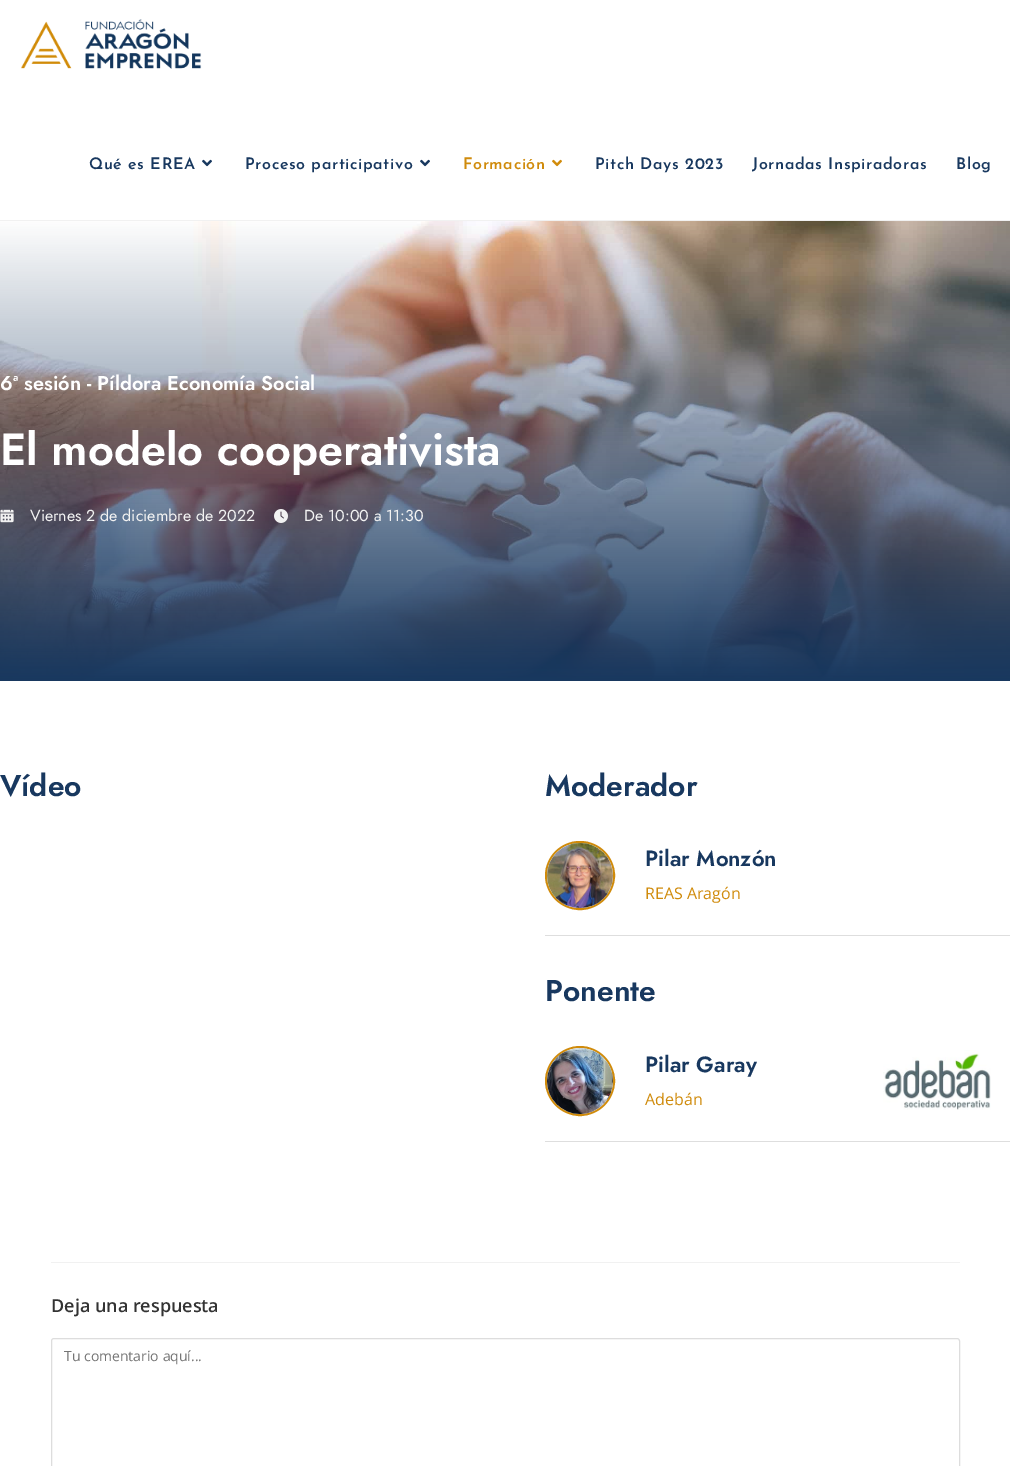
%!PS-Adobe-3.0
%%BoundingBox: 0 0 1010 1466
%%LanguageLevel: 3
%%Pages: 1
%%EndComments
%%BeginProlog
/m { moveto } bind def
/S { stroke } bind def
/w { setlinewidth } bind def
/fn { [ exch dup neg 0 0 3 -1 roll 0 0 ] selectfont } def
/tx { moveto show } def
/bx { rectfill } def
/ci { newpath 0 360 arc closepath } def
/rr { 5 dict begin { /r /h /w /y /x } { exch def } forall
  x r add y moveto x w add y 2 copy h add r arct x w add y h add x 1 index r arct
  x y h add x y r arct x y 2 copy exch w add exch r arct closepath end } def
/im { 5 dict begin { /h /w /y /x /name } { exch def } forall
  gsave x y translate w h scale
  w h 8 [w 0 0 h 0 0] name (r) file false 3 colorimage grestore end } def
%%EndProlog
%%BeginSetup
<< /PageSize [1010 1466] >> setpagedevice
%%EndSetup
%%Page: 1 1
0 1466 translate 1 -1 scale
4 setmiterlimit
1 setgray
0 0 1010 1466 bx
0.945 setgray
0 220 1010 1 bx
(image0.raw) 21 19 181 50 im
/JosefinSans-SemiBold 16 fn
0.094 0.22 0.373 setrgbcolor
89 169 m 0.6 0 (Qué es EREA) ashow
(image1.raw) 202 159 10 8 im
245 169 m 0.6 0 (Proceso participativo) ashow
(image1.raw) 420 159 10 8 im
0.816 0.545 0.043 setrgbcolor
463 169 m 0.6 0 (Formación) ashow
(image2.raw) 552 159 10 8 im
0.094 0.22 0.373 setrgbcolor
595 169 m 0.6 0 (Pitch Days 2023) ashow
752 169 m 0.6 0 (Jornadas Inspiradoras) ashow
956 169 m 0.6 0 (Blog) ashow
(image3.raw) 0 221 1010 460 im
/Jost-SemiBold 20 fn
1 setgray
(6ª sesión - Píldora Economía Social) 0 390 tx
/Jost-SemiBold 45 fn
(El modelo cooperativista) 0 465 tx
(image4.raw) 0 509 14 14 im
/Jost-Regular 16 fn
0.949 setgray
(Viernes 2 de diciembre de 2022) 30 521 tx
(image5.raw) 274 509 14 14 im
(De 10:00 a 11:30) 304 521 tx
/Jost-SemiBold 30 fn
0.094 0.22 0.373 setrgbcolor
(Vídeo) 0 796 tx
(Moderador) 545 796 tx
0.871 setgray
545 935 465 1 bx
0.816 0.545 0.043 setrgbcolor
2 w
546 842 68 67 33.5 rr S
(image6.raw) 547 843 66 65 im
/Jost-SemiBold 22 fn
0.094 0.22 0.373 setrgbcolor
(Pilar Monzón) 645 866 tx
/OpenSans-Regular 16 fn
0.816 0.545 0.043 setrgbcolor
(REAS Aragón) 645 899 tx
/Jost-SemiBold 30 fn
0.094 0.22 0.373 setrgbcolor
(Ponente) 545 1001 tx
0.871 setgray
545 1141 465 1 bx
0.816 0.545 0.043 setrgbcolor
580 1081 34 ci S
(image7.raw) 547 1048 66 66 im
/Jost-SemiBold 22 fn
0.094 0.22 0.373 setrgbcolor
(Pilar Garay) 645 1072 tx
/OpenSans-Regular 16 fn
0.816 0.545 0.043 setrgbcolor
(Adebán) 645 1105 tx
(image8.raw) 883 1050 108 60 im
0.945 setgray
51 1262 909 1 bx
/OpenSans-SemiBold 18 fn
0.2 setgray
(Deja una respuesta) 51 1312 tx
0.867 setgray
1 w
51.5 1338.5 908 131 2.5 rr S
/OpenSans-Regular 14 fn
0.459 setgray
(Tu comentario aquí...) 64 1361 tx
showpage
%%EOF
